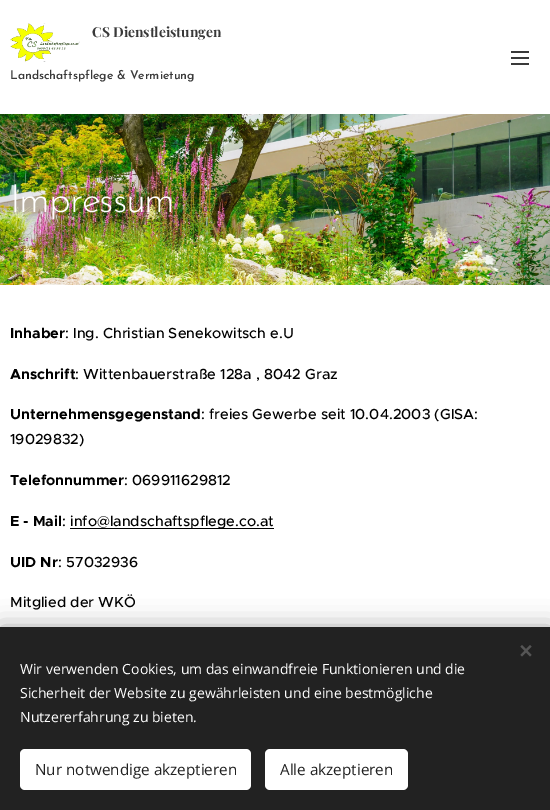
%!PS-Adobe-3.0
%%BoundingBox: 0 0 550 810
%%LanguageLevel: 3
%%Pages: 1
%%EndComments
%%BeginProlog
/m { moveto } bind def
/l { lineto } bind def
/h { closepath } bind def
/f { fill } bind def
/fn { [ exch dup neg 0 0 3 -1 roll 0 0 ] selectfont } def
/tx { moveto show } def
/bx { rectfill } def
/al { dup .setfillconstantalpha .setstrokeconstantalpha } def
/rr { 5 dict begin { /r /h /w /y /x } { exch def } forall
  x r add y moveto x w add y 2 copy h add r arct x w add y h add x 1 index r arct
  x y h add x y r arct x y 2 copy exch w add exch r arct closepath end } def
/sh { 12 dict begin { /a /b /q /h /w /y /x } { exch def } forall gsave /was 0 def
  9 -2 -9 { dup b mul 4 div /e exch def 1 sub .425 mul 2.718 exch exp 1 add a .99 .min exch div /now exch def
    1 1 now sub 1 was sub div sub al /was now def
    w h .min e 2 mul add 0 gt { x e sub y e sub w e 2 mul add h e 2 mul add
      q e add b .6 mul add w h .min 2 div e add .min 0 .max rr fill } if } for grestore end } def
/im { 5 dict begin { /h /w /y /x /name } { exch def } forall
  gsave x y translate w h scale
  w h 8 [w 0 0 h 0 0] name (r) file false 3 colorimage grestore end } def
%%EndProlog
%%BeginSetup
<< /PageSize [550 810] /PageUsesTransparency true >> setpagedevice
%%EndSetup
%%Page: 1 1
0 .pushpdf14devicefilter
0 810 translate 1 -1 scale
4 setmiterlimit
1 setgray
0 0 550 810 bx
(image0.raw) 10 23 70 39 im
/PlayfairDisplay-Bold 13.75 fn
0.224 setgray
(CS Dienstleistungen) 92 37 tx
/JosefinSans-SemiBold 12 fn
(Landschaftspflege & Vermietung) 10 79 tx
511 57 18 2 bx
511 51 18 2 bx
511 63 18 2 bx
(image1.raw) 0 114 550 171 im
/JosefinSans-Light 39 fn
1 setgray
10 212 m -1.25 0 (Impressum) ashow
/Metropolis-Bold 14.6 fn
0 setgray
(Inhaber) 10 338 tx
/Metropolis-Medium 14.6 fn
(: Ing. Christian Senekowitsch e.U) 65 338 tx
/Metropolis-Bold 14.6 fn
(Anschrift) 10 379 tx
/Metropolis-Medium 14.6 fn
(: Wittenbauerstraße 128a , 8042 Graz) 75 379 tx
/Metropolis-Bold 14.6 fn
(Unternehmensgegenstand) 10 419 tx
/Metropolis-Medium 14.6 fn
(: freies Gewerbe seit 10.04.2003 \(GISA:) 201 419 tx
(19029832\)) 10 444 tx
/Metropolis-Bold 14.6 fn
(Telefonnummer) 10 485 tx
/Metropolis-Medium 14.6 fn
(: 069911629812) 124 485 tx
/Metropolis-Bold 14.6 fn
(E - Mail) 10 526 tx
/Metropolis-Medium 14.6 fn
(:) 62 526 tx
70 528 204 1 bx
(info@landschaftspflege.co.at) 70 526 tx
/Metropolis-Bold 14.6 fn
(UID Nr) 10 567 tx
/Metropolis-Medium 14.6 fn
(: 57032936) 58 567 tx
(Mitglied der WKÖ) 10 607 tx
0 627 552 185 0 12.5 0.33 sh
0.133 setgray
0 627 550 183 bx
0.333 setgray
520.5 655 m 530 645 l 531.5 646.5 l 522 656.5 l h f
522 645 m 531.5 655 l 530 656.5 l 520.5 646.5 l h f
/OpenSans-Regular 14 fn
1 setgray
(Wir verwenden Cookies, um das einwandfreie Funktionieren und die) 20 674 tx
(Sicherheit der Website zu gewährleisten und eine bestmögliche) 20 698 tx
(Nutzererfahrung zu bieten.) 20 722 tx
20 749 231 41 5 rr f
/OpenSans-Regular 15.25 fn
0.133 setgray
(Nur notwendige akzeptieren) 35 775 tx
1 setgray
265 749 143 41 5 rr f
0.133 setgray
(Alle akzeptieren) 280 775 tx
.poppdf14devicefilter showpage
%%EOF
